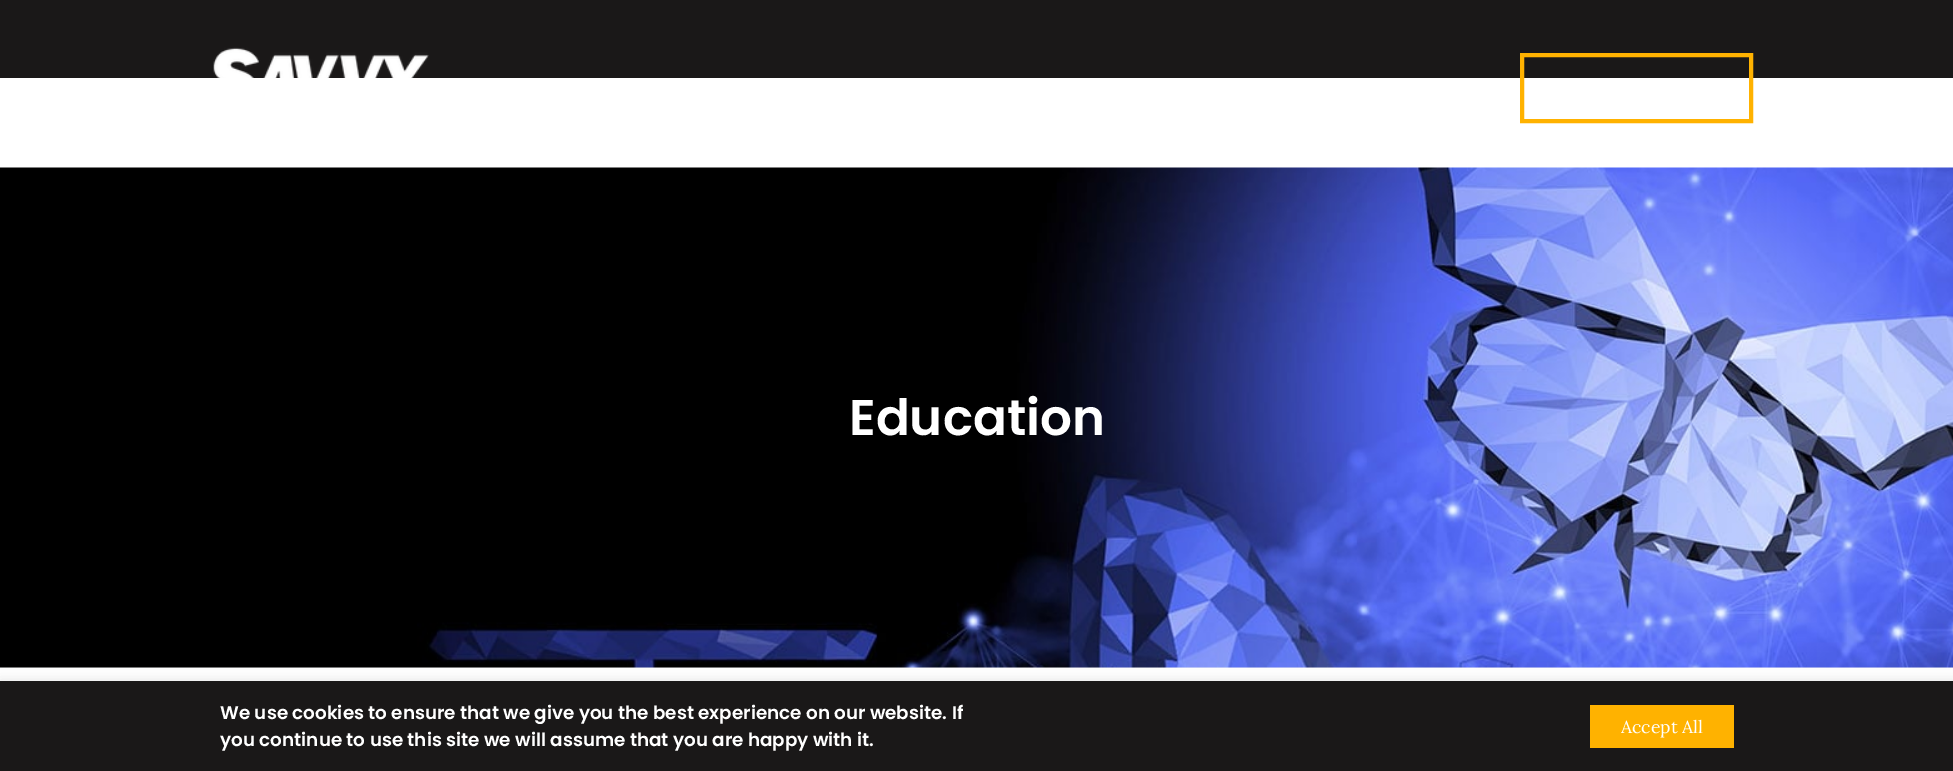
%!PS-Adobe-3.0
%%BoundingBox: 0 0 1953 771
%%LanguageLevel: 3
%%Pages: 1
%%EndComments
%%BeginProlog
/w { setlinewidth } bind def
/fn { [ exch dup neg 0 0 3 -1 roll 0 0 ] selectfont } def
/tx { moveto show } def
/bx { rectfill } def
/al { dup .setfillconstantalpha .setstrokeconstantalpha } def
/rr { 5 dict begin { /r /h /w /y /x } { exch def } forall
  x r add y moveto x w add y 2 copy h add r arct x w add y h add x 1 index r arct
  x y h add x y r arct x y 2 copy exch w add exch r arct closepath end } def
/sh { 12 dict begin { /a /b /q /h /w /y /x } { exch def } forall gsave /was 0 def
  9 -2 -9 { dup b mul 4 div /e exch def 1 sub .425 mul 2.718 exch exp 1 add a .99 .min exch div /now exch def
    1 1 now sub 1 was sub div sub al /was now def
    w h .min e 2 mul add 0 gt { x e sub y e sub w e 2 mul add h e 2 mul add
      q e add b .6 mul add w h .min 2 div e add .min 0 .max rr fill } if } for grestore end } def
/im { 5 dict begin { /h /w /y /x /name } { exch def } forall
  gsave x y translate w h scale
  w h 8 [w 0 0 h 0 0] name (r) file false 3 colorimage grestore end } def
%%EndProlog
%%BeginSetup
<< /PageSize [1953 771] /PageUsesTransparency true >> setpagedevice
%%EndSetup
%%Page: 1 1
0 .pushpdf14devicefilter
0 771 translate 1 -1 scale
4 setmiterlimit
1 setgray
0 0 1953 771 bx
0.102 0.094 0.094 setrgbcolor
0 0 1953 78 bx
(image0.raw) 213 47 216 31 im
1 0.698 0 setrgbcolor
4 w
1522 55 229 66 rectstroke
0.949 0.953 0.961 setrgbcolor
0 667 1953 1 bx
(image1.raw) 0 167 1953 501 im
/Poppins-SemiBold 50 fn
1 setgray
(Education) 849 435 tx
0.675 0.671 0.671 setrgbcolor
0 680 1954 90 0 6 0.3 sh
0.102 0.094 0.094 setrgbcolor
0 681 1953 90 bx
/Poppins-SemiBold 18.35 fn
1 setgray
(We use cookies to ensure that we give you the best experience on our website. If) 220 719 tx
(you continue to use this site we will assume that you are happy with it.) 220 746 tx
1 0.698 0 setrgbcolor
1590 705 144 43 bx
/Lora-Regular 17.5 fn
1 setgray
(Accept All) 1621 733 tx
.poppdf14devicefilter showpage
%%EOF
